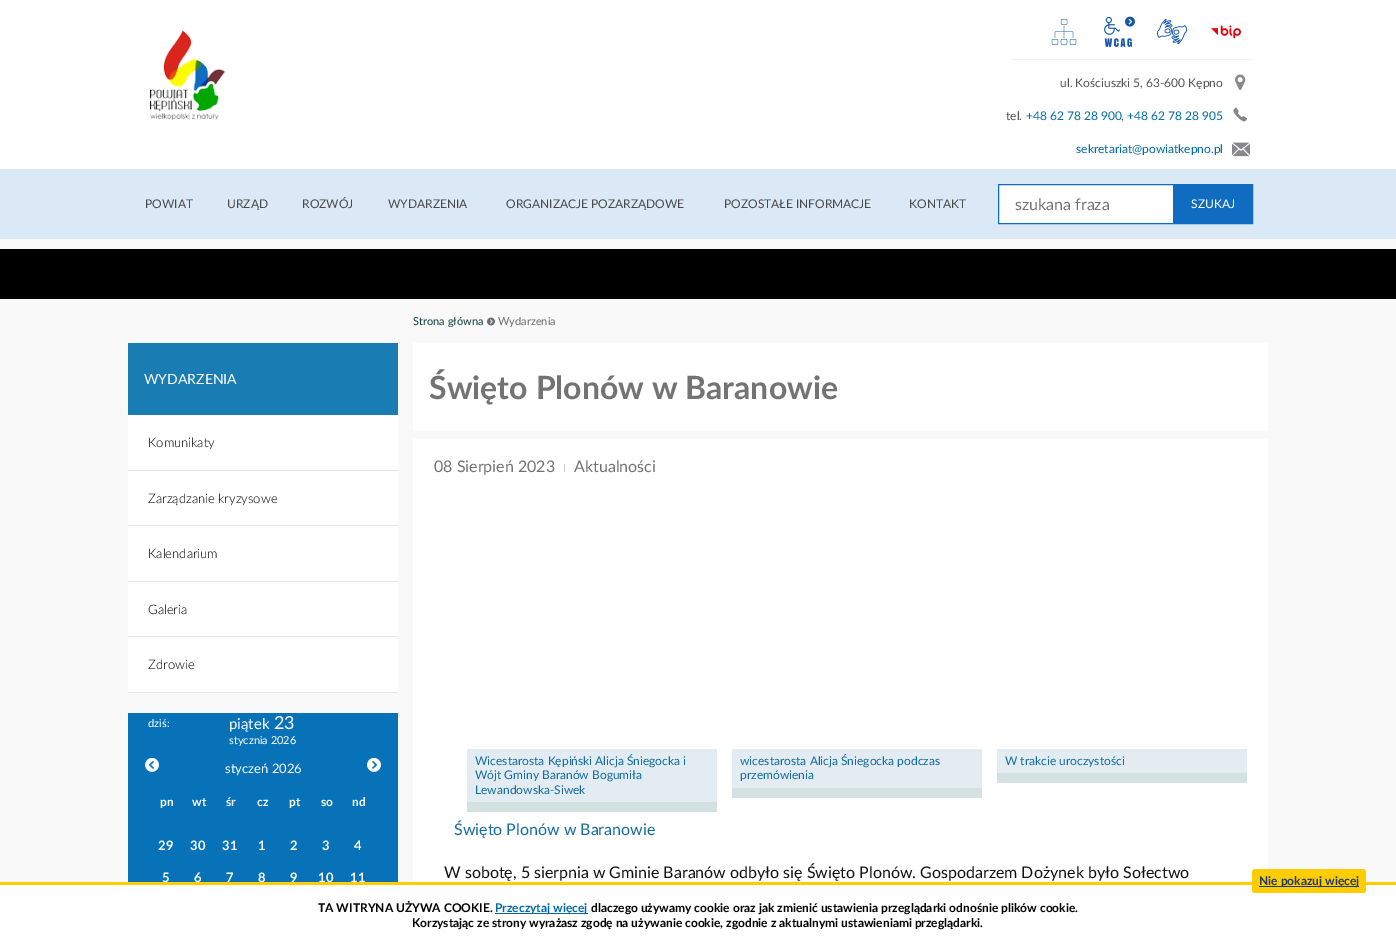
%!PS-Adobe-3.0
%%BoundingBox: 0 0 1396 946
%%LanguageLevel: 3
%%Pages: 1
%%EndComments
%%BeginProlog
/f { fill } bind def
/fn { [ exch dup neg 0 0 3 -1 roll 0 0 ] selectfont } def
/tx { moveto show } def
/bx { rectfill } def
/rr { 5 dict begin { /r /h /w /y /x } { exch def } forall
  x r add y moveto x w add y 2 copy h add r arct x w add y h add x 1 index r arct
  x y h add x y r arct x y 2 copy exch w add exch r arct closepath end } def
/im { 5 dict begin { /h /w /y /x /name } { exch def } forall
  gsave x y translate w h scale
  w h 8 [w 0 0 h 0 0] name (r) file false 3 colorimage grestore end } def
%%EndProlog
%%BeginSetup
<< /PageSize [1396 946] >> setpagedevice
%%EndSetup
%%Page: 1 1
0 946 translate 1 -1 scale
4 setmiterlimit
0.976 setgray
0 0 1396 946 bx
1 setgray
0 0 1396 169 bx
(image0.raw) 150 30 76 90 im
0.953 setgray
1012 59 241 1 bx
(image1.raw) 1051 18 26 27 im
(image2.raw) 1104 16 28 31 im
(image3.raw) 1125 16 10 11 im
(image4.raw) 1157 18 30 27 im
(image5.raw) 1211 25 30 14 im
/Lato-Regular 12 fn
0.333 setgray
(ul. Kościuszki 5, 63-600 Kępno) 1060 87 tx
(image6.raw) 1235 74 11 16 im
(tel.) 1006 120 tx
0 0.42 0.659 setrgbcolor
(+48 62 78 28 900) 1026 120 tx
0.333 setgray
(,) 1121 120 tx
0 0.42 0.659 setrgbcolor
(+48 62 78 28 905) 1127 120 tx
(image7.raw) 1233 107 15 15 im
(sekretariat@powiatkepno.pl) 1076 153 tx
(image8.raw) 1232 142 18 15 im
0.859 0.914 0.965 setrgbcolor
0 169 1396 70 bx
0.29 setgray
(POWIAT) 145 208 tx
(URZĄD) 227 208 tx
(ROZWÓJ) 302 208 tx
(WYDARZENIA) 388 208 tx
(ORGANIZACJE POZARZĄDOWE) 506 208 tx
(POZOSTAŁE INFORMACJE) 724 208 tx
(KONTAKT) 909 208 tx
1 setgray
999 185 174 38 bx
0.063 0.424 0.757 setrgbcolor
998.5 184.5 254 39 rectstroke
/Lato-Regular 16 fn
0.451 setgray
(szukana fraza) 1015 210 tx
0.063 0.424 0.757 setrgbcolor
1173 185 79 38 bx
/Lato-Regular 12 fn
1 setgray
(SZUKAJ) 1191 208 tx
0 setgray
0 249 1396 50 bx
/Lato-Regular 11 fn
0.047 0.243 0.239 setrgbcolor
(Strona główna) 413 325 tx
(image9.raw) 487 317 8 9 im
0.424 setgray
(Wydarzenia) 498 325 tx
0.098 0.486 0.702 setrgbcolor
128 343 270 72 bx
/Lato-Regular 14 fn
1 setgray
(WYDARZENIA) 144 384 tx
128 415 270 55 bx
/Lato-Light 13 fn
0 setgray
(Komunikaty) 148 447 tx
0.898 setgray
128 470 270 1 bx
1 setgray
128 471 270 54 bx
0 setgray
(Zarządzanie kryzysowe) 148 503 tx
0.898 setgray
128 525 270 1 bx
1 setgray
128 526 270 55 bx
0 setgray
(Kalendarium) 148 558 tx
0.898 setgray
128 581 270 1 bx
1 setgray
128 582 270 54 bx
0 setgray
(Galeria) 148 614 tx
0.898 setgray
128 636 270 1 bx
1 setgray
128 637 270 55 bx
0 setgray
(Zdrowie) 148 669 tx
0.898 setgray
128 692 270 1 bx
0.027 0.447 0.722 setrgbcolor
128 713 270 169 bx
/Lato-Regular 11 fn
1 setgray
(dziś:) 148 727 tx
/Lato-Regular 15 fn
(piątek) 229 729 tx
/Lato-Regular 18 fn
(23) 274 729 tx
/Lato-Regular 11 fn
(stycznia 2026) 229 744 tx
(image10.raw) 145 758 14 14 im
/Lato-Regular 13 fn
(styczeń 2026) 225 773 tx
(image11.raw) 367 758 14 14 im
/Lato-Bold 12 fn
(pn) 160 806 tx
(wt) 192 806 tx
(śr) 226 806 tx
(cz) 257 806 tx
(pt) 289 806 tx
(so) 321 806 tx
(nd) 352 806 tx
/Lato-Bold 13 fn
(29) 158 850 tx
(30) 190 850 tx
(31) 222 850 tx
(1) 258 850 tx
(2) 290 850 tx
(3) 322 850 tx
(4) 354 850 tx
(5) 162 882 tx
(6) 194 882 tx
(7) 226 882 tx
(8) 258 882 tx
(9) 290 882 tx
(10) 318 882 tx
(11) 350 882 tx
413 343 855 88 bx
/Lato-Bold 32 fn
0.451 setgray
(Święto Plonów w Baranowie) 429 399 tx
1 setgray
413 439 855 443 bx
/Lato-Regular 16 fn
0.451 setgray
(08 Sierpień 2023) 434 472 tx
0.8 setgray
564 464 1 8 bx
0.451 setgray
(Aktualności) 574 472 tx
0.886 0.925 0.949 setrgbcolor
467 749 250 53 bx
/Lato-Regular 12 fn
0.086 0.427 0.612 setrgbcolor
(Wicestarosta Kępiński Alicja Śniegocka i) 475 765 tx
(Wójt Gminy Baranów Bogumiła) 475 779 tx
(Lewandowska-Siwek) 475 794 tx
0.827 0.886 0.882 setrgbcolor
467 802 250 10 bx
0.886 0.925 0.949 setrgbcolor
732 749 250 39 bx
0.086 0.427 0.612 setrgbcolor
(wicestarosta Alicja Śniegocka podczas) 740 765 tx
(przemówienia) 740 779 tx
0.827 0.886 0.882 setrgbcolor
732 788 250 10 bx
0.886 0.925 0.949 setrgbcolor
997 749 250 24 bx
0.086 0.427 0.612 setrgbcolor
(W trakcie uroczystości) 1005 765 tx
0.827 0.886 0.882 setrgbcolor
997 773 250 10 bx
/Lato-Regular 16 fn
0.086 0.427 0.612 setrgbcolor
(Święto Plonów w Baranowie) 454 835 tx
0.067 setgray
(W sobotę, 5 sierpnia w Gminie Baranów odbyło się Święto Plonów. Gospodarzem Dożynek było Sołectwo) 444 878 tx
1 setgray
0 885 1396 61 bx
1 0.804 0 setrgbcolor
0 882 1396 3 bx
1252 869 114 24 3 rr f
0.129 0.224 0.424 setrgbcolor
1259 886 100 1 bx
/Lato-Bold 12 fn
(Nie pokazuj więcej) 1259 885 tx
0 setgray
(TA WITRYNA UŻYWA COOKIE.) 318 912 tx
0 0.42 0.659 setrgbcolor
495 913 93 1 bx
(Przeczytaj więcej) 495 912 tx
0 setgray
(dlaczego używamy cookie oraz jak zmienić ustawienia przeglądarki odnośnie plików cookie.) 591 912 tx
(Korzystając ze strony wyrażasz zgodę na używanie cookie, zgodnie z aktualnymi ustawieniami przeglądarki.) 412 927 tx
showpage
%%EOF
